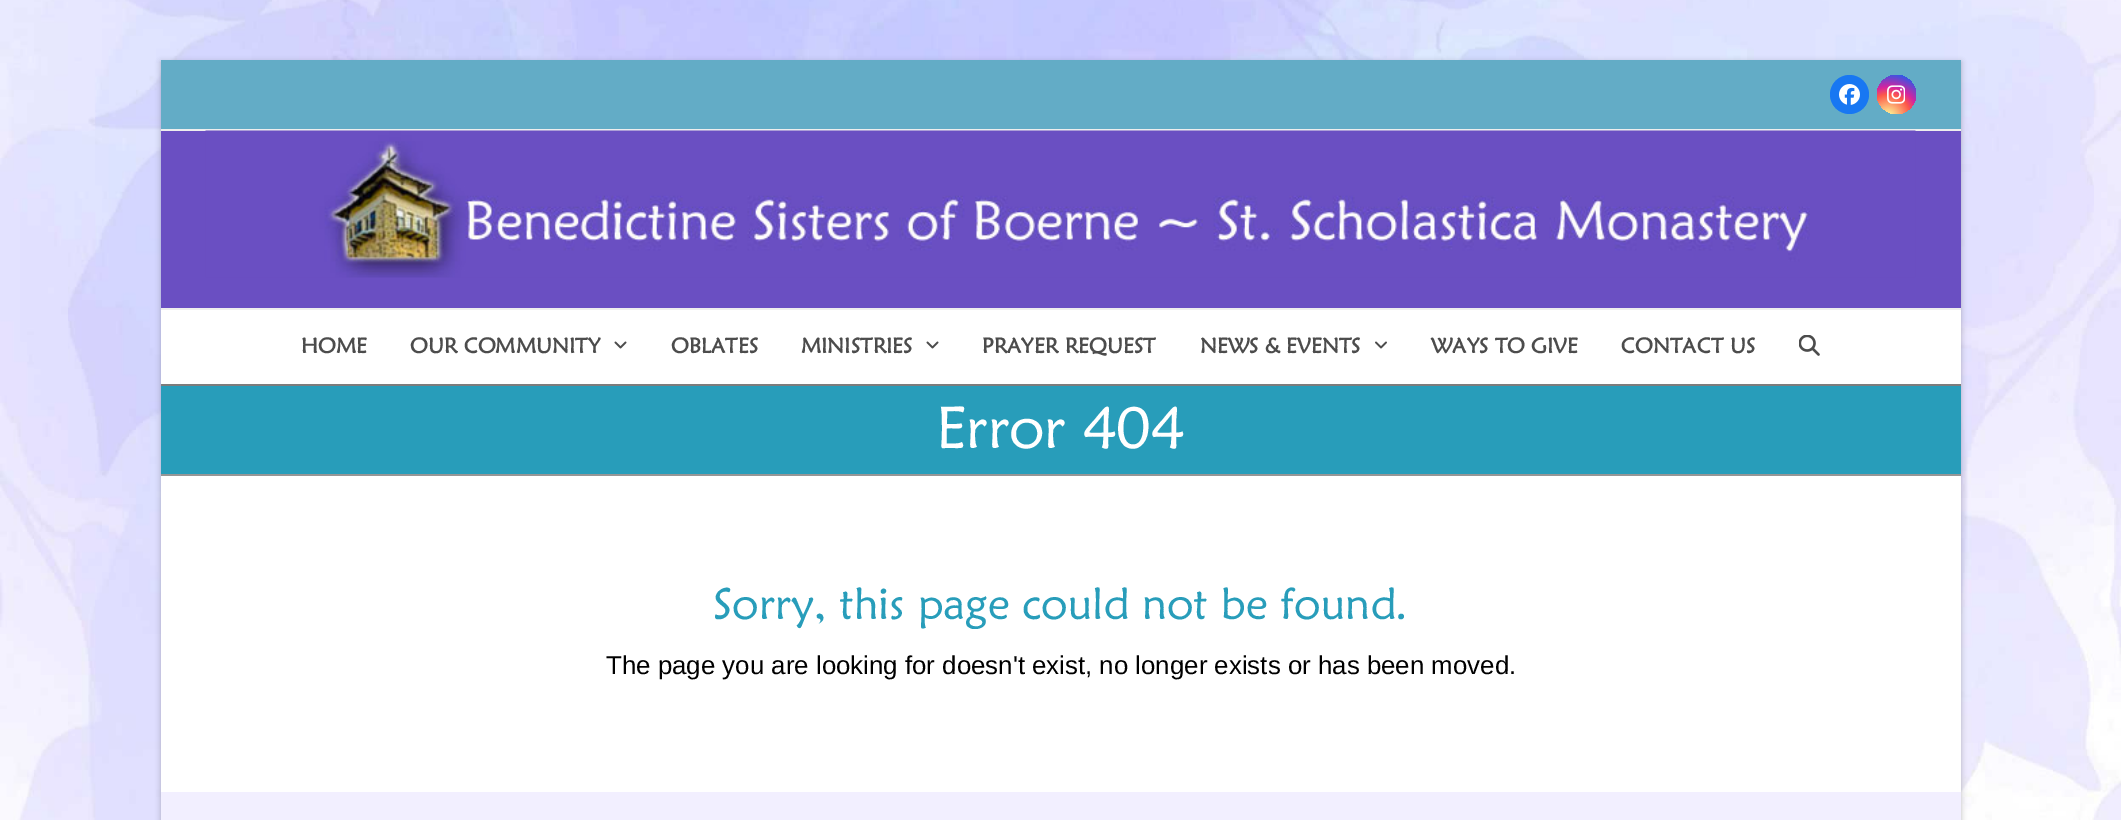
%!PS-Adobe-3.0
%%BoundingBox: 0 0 2121 820
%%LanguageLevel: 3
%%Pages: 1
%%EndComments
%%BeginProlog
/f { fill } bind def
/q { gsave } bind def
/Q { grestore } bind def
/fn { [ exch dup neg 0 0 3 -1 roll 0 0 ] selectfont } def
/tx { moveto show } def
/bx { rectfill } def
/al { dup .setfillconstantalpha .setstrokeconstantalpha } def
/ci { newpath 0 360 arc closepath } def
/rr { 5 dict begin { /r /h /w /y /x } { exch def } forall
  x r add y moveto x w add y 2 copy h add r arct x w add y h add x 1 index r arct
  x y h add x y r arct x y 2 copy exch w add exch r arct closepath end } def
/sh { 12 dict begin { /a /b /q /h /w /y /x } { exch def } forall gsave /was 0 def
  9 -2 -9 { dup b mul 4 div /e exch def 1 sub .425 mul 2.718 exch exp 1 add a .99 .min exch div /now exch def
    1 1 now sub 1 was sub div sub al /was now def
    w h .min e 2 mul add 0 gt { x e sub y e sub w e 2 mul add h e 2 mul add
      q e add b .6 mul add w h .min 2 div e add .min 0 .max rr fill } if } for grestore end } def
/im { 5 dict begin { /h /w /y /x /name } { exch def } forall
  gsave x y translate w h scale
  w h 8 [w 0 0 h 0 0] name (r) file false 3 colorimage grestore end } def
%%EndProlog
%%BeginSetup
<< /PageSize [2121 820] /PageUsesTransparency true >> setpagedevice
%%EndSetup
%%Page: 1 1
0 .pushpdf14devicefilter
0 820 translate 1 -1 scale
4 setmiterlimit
1 setgray
0 0 2121 820 bx
(image0.raw) 0 0 2121 820 im
0 setgray
161 62 1800 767 0 3 0.25 sh
1 setgray
161 476 1800 316 bx
0.388 0.675 0.776 setrgbcolor
161 60 1800 69 bx
0.933 setgray
161 129 1800 2 bx
0.094 0.467 0.949 setrgbcolor
1849.5 94.5 19.5 ci f
(image1.raw) 1839 84 21 21 im
q 1896.5 94.5 19.5 ci clip newpath 1888 117 translate 50 50 scale
<< /ShadingType 3 /ColorSpace /DeviceRGB /Coords [0 0 0 0 0 1] /Extend [true true] /Function << /FunctionType 3 /Domain [0 1] /Functions [<< /FunctionType 2 /Domain [0 1] /C0 [0.992 0.957 0.592] /C1 [0.992 0.957 0.592] /N 1 >> << /FunctionType 2 /Domain [0 1] /C0 [0.992 0.957 0.592] /C1 [0.992 0.349 0.286] /N 1 >> << /FunctionType 2 /Domain [0 1] /C0 [0.992 0.349 0.286] /C1 [0.839 0.141 0.624] /N 1 >> << /FunctionType 2 /Domain [0 1] /C0 [0.839 0.141 0.624] /C1 [0.157 0.353 0.922] /N 1 >> << /FunctionType 2 /Domain [0 1] /C0 [0.157 0.353 0.922] /C1 [0.157 0.353 0.922] /N 1 >>] /Bounds [0.05 0.45 0.6 0.9] /Encode [0 1 0 1 0 1 0 1 0 1] >> >> shfill Q
(image2.raw) 1887 85 18 19 im
0.416 0.31 0.761 setrgbcolor
161 131 1800 177 bx
(image3.raw) 205 130 1711 148 im
1 setgray
161 310 1800 74 bx
0.933 setgray
161 308 1800 2 bx
/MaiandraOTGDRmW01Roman-Bold 21.25 fn
0.298 setgray
(HOME) 301 353 tx
(OUR COMMUNITY) 410 353 tx
(image4.raw) 614 341 13 8 im
(OBLATES) 671 353 tx
(MINISTRIES) 801 353 tx
(image4.raw) 926 341 13 8 im
(PRAYER REQUEST) 982 353 tx
(NEWS & EVENTS) 1200 353 tx
(image5.raw) 1375 341 12 8 im
(WAYS TO GIVE) 1431 353 tx
(CONTACT US) 1621 353 tx
(image6.raw) 1799 335 21 21 im
0.157 0.616 0.729 setrgbcolor
161 386 1800 88 bx
0.486 setgray
161 384 1800 2 bx
0.588 setgray
161 474 1800 2 bx
/MaiandraOTGDRmW01Roman-Regular 59 fn
1 setgray
(Error 404) 936 448 tx
/MaiandraOTGDRmW01Roman-Regular 44.25 fn
0.157 0.616 0.729 setrgbcolor
(Sorry, this page could not be found.) 713 619 tx
/LiberationSans-Regular 25.85 fn
0 setgray
(The page you are looking for doesn't exist, no longer exists or has been moved.) 606 674 tx
0.949 0.937 1 setrgbcolor
161 792 1800 28 bx
.poppdf14devicefilter showpage
%%EOF
